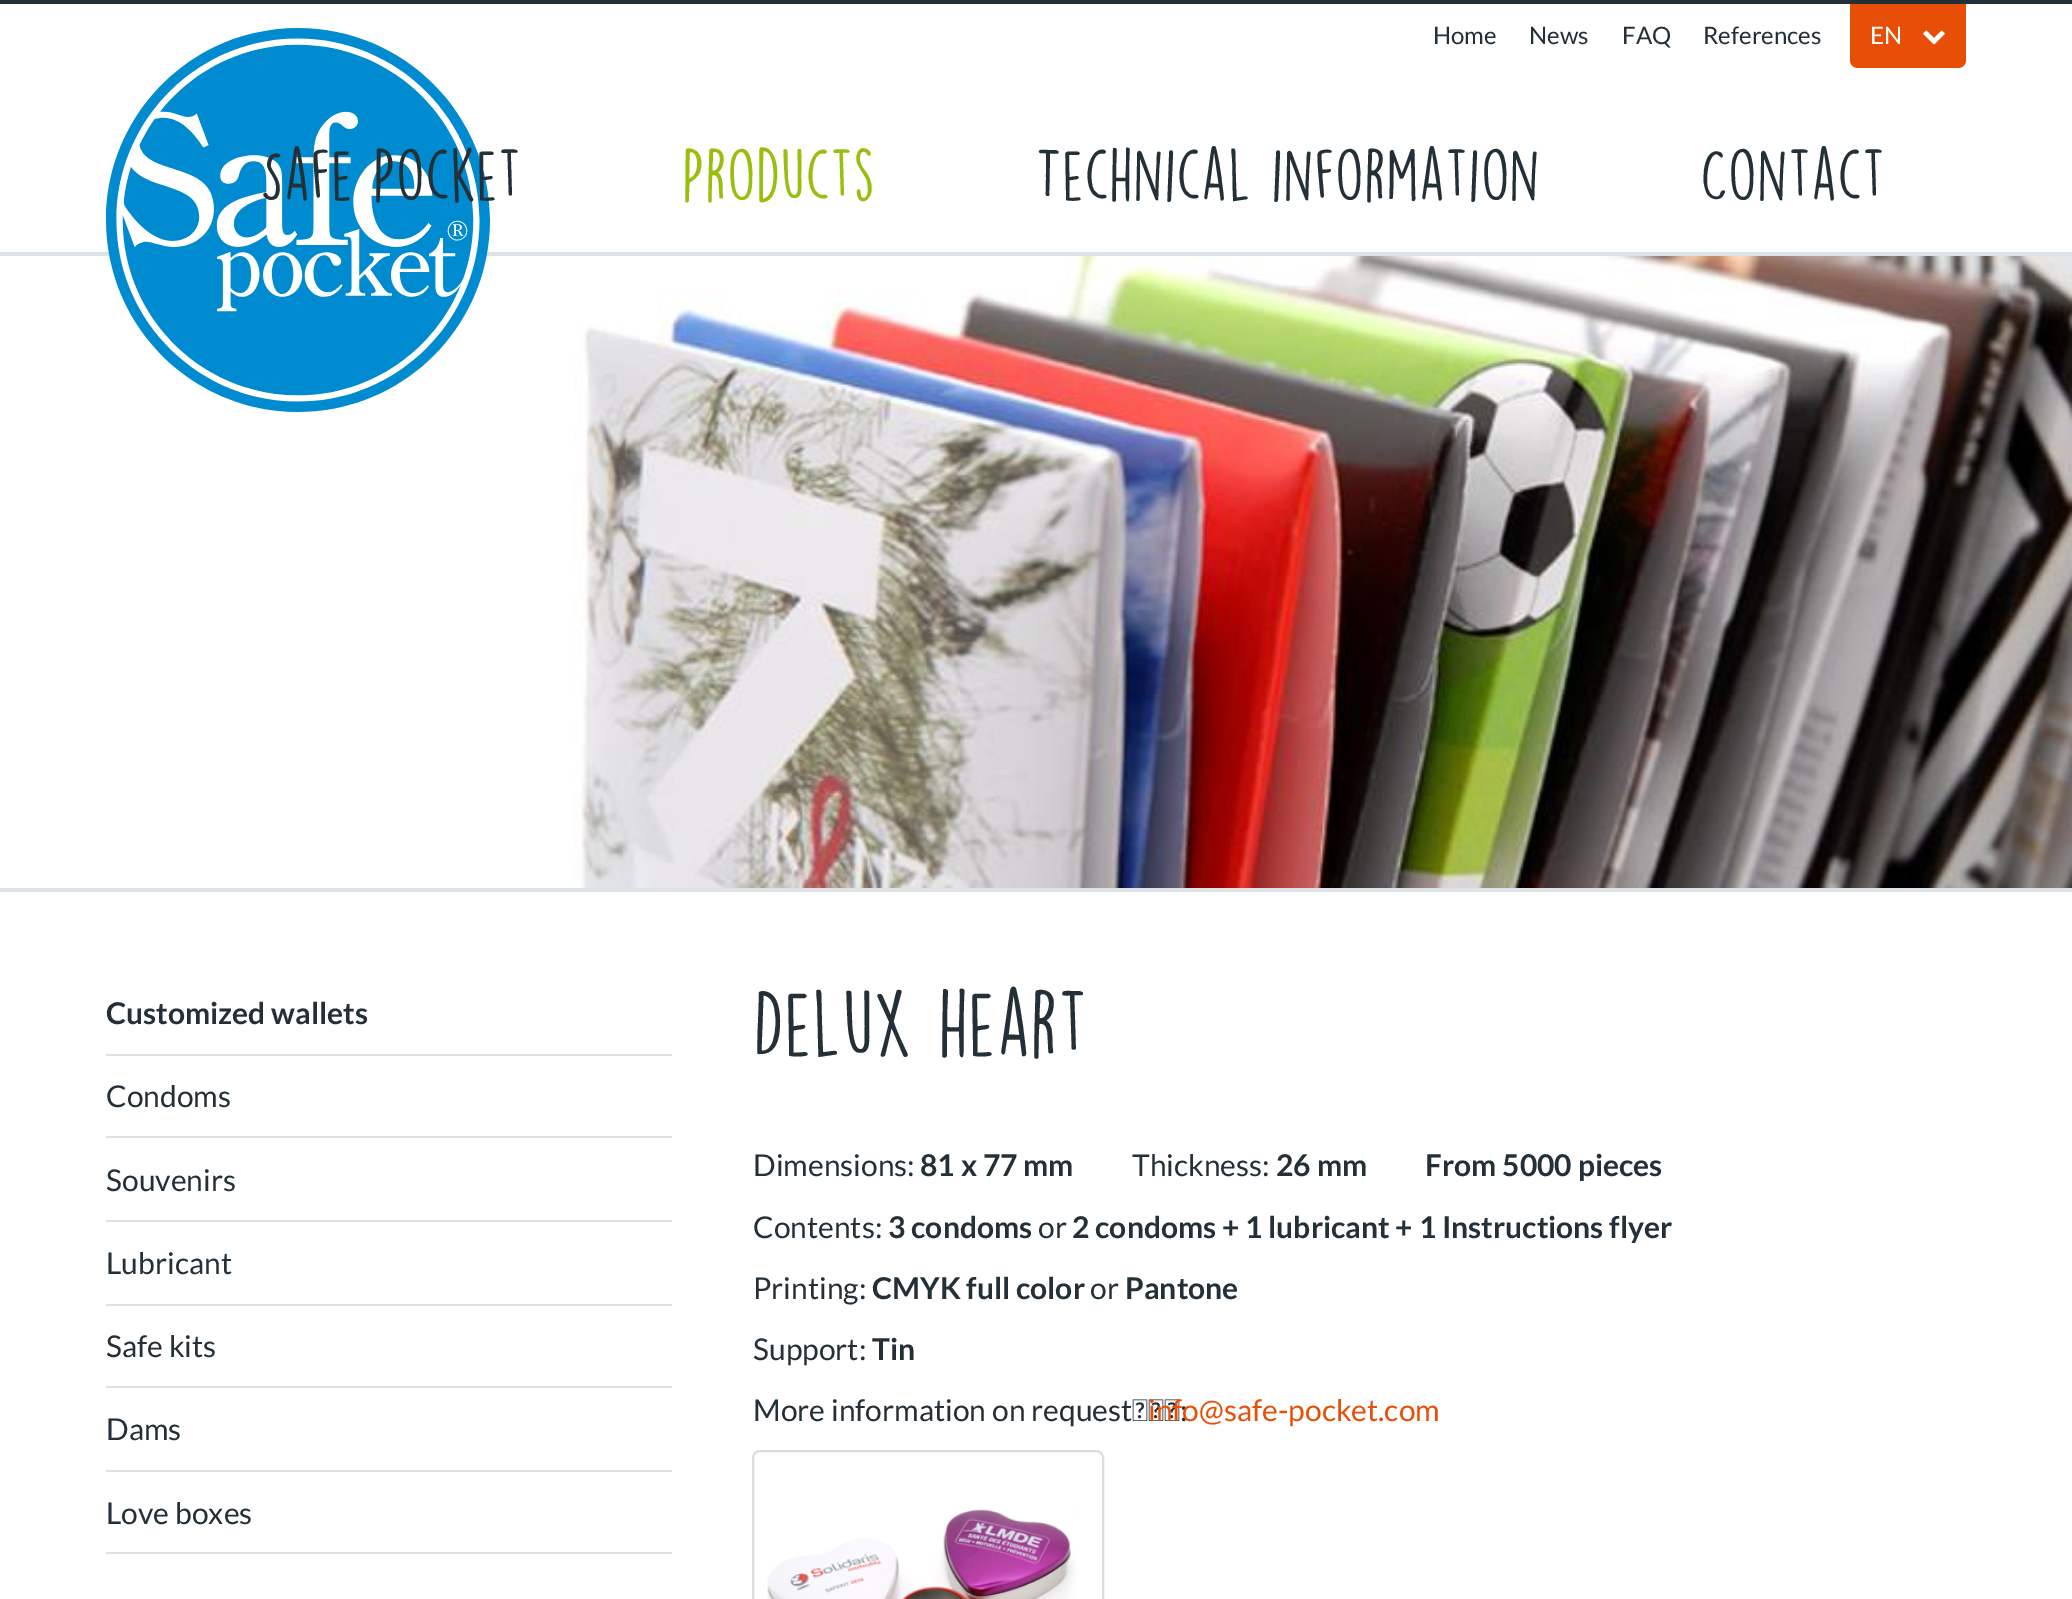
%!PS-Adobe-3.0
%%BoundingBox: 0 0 2072 1599
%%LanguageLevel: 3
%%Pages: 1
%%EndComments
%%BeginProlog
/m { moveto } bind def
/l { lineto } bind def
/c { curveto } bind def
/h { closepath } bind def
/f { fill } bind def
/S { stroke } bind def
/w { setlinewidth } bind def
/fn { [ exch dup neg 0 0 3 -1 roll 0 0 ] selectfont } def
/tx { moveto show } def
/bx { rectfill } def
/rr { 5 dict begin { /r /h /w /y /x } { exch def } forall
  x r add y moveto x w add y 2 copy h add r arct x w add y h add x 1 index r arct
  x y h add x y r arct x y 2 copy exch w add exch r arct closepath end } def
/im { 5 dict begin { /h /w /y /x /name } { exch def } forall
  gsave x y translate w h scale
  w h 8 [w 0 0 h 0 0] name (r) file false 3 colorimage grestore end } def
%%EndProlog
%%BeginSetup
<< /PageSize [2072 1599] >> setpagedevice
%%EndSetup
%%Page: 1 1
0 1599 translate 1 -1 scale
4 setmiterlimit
1 setgray
0 0 2072 1599 bx
0.141 0.188 0.22 setrgbcolor
0 0 2072 4 bx
/Lato-Regular 24 fn
(Home) 1433 44 tx
(News) 1529 44 tx
(FAQ) 1622 44 tx
(References) 1703 44 tx
0.906 0.31 0.027 setrgbcolor
1850 4 m 1966 4 l 1966 60 l 1966 64.5 1962.5 68 1958 68 c 1858 68 l 1853.5 68 1850 64.5 1850 60 c h f
1 setgray
(EN) 1870 44 tx
(image0.raw) 1923 30 22 15 im
0.863 0.886 0.902 setrgbcolor
0 252 2072 4 bx
(image1.raw) 106 28 384 384 im
/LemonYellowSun-Regular 66 fn
0.141 0.188 0.22 setrgbcolor
(Safe Pocket) 260 202 tx
0.596 0.749 0.055 setrgbcolor
(Products) 682 202 tx
0.141 0.188 0.22 setrgbcolor
(Technical information) 1035 202 tx
(Contact) 1700 202 tx
(image2.raw) 572 256 1500 632 im
0.863 0.886 0.902 setrgbcolor
0 888 2072 4 bx
106 1054 566 2 bx
/Lato-Bold 30 fn
0.141 0.188 0.22 setrgbcolor
(Customized wallets) 106 1024 tx
0.863 0.886 0.902 setrgbcolor
106 1136 566 2 bx
/Lato-Regular 30 fn
0.141 0.188 0.22 setrgbcolor
(Condoms) 106 1107 tx
0.863 0.886 0.902 setrgbcolor
106 1220 566 2 bx
0.141 0.188 0.22 setrgbcolor
(Souvenirs) 106 1191 tx
0.863 0.886 0.902 setrgbcolor
106 1304 566 2 bx
0.141 0.188 0.22 setrgbcolor
(Lubricant) 106 1274 tx
0.863 0.886 0.902 setrgbcolor
106 1386 566 2 bx
0.141 0.188 0.22 setrgbcolor
(Safe kits) 106 1357 tx
0.863 0.886 0.902 setrgbcolor
106 1470 566 2 bx
0.141 0.188 0.22 setrgbcolor
(Dams) 106 1440 tx
0.863 0.886 0.902 setrgbcolor
106 1552 566 2 bx
0.141 0.188 0.22 setrgbcolor
(Love boxes) 106 1524 tx
/LemonYellowSun-Regular 84 fn
(Delux heart) 753 1058 tx
/Lato-Regular 30 fn
(Dimensions:) 753 1176 tx
/Lato-Bold 30 fn
(81 x 77 mm) 920 1176 tx
/Lato-Regular 30 fn
(Thickness:) 1132 1176 tx
/Lato-Bold 30 fn
(26 mm) 1276 1176 tx
(From 5000 pieces) 1425 1176 tx
/Lato-Regular 30 fn
(Contents:) 753 1238 tx
/Lato-Bold 30 fn
(3 condoms) 888 1238 tx
/Lato-Regular 30 fn
(or) 1038 1238 tx
/Lato-Bold 30 fn
(2 condoms + 1 lubricant + 1 Instructions flyer) 1072 1238 tx
/Lato-Regular 30 fn
(Printing:) 753 1299 tx
/Lato-Bold 30 fn
(CMYK full color) 872 1299 tx
/Lato-Regular 30 fn
(or) 1090 1299 tx
/Lato-Bold 30 fn
(Pantone) 1125 1299 tx
/Lato-Regular 30 fn
(Support:) 753 1360 tx
/Lato-Bold 30 fn
(Tin) 872 1360 tx
/Lato-Regular 30 fn
(More information on request :) 753 1421 tx
0.906 0.31 0.027 setrgbcolor
(info@safe-pocket.com) 1148 1421 tx
0.867 setgray
2 w
753 1451 350 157 7 rr S
(image3.raw) 766 1509 310 90 im
showpage
%%EOF
